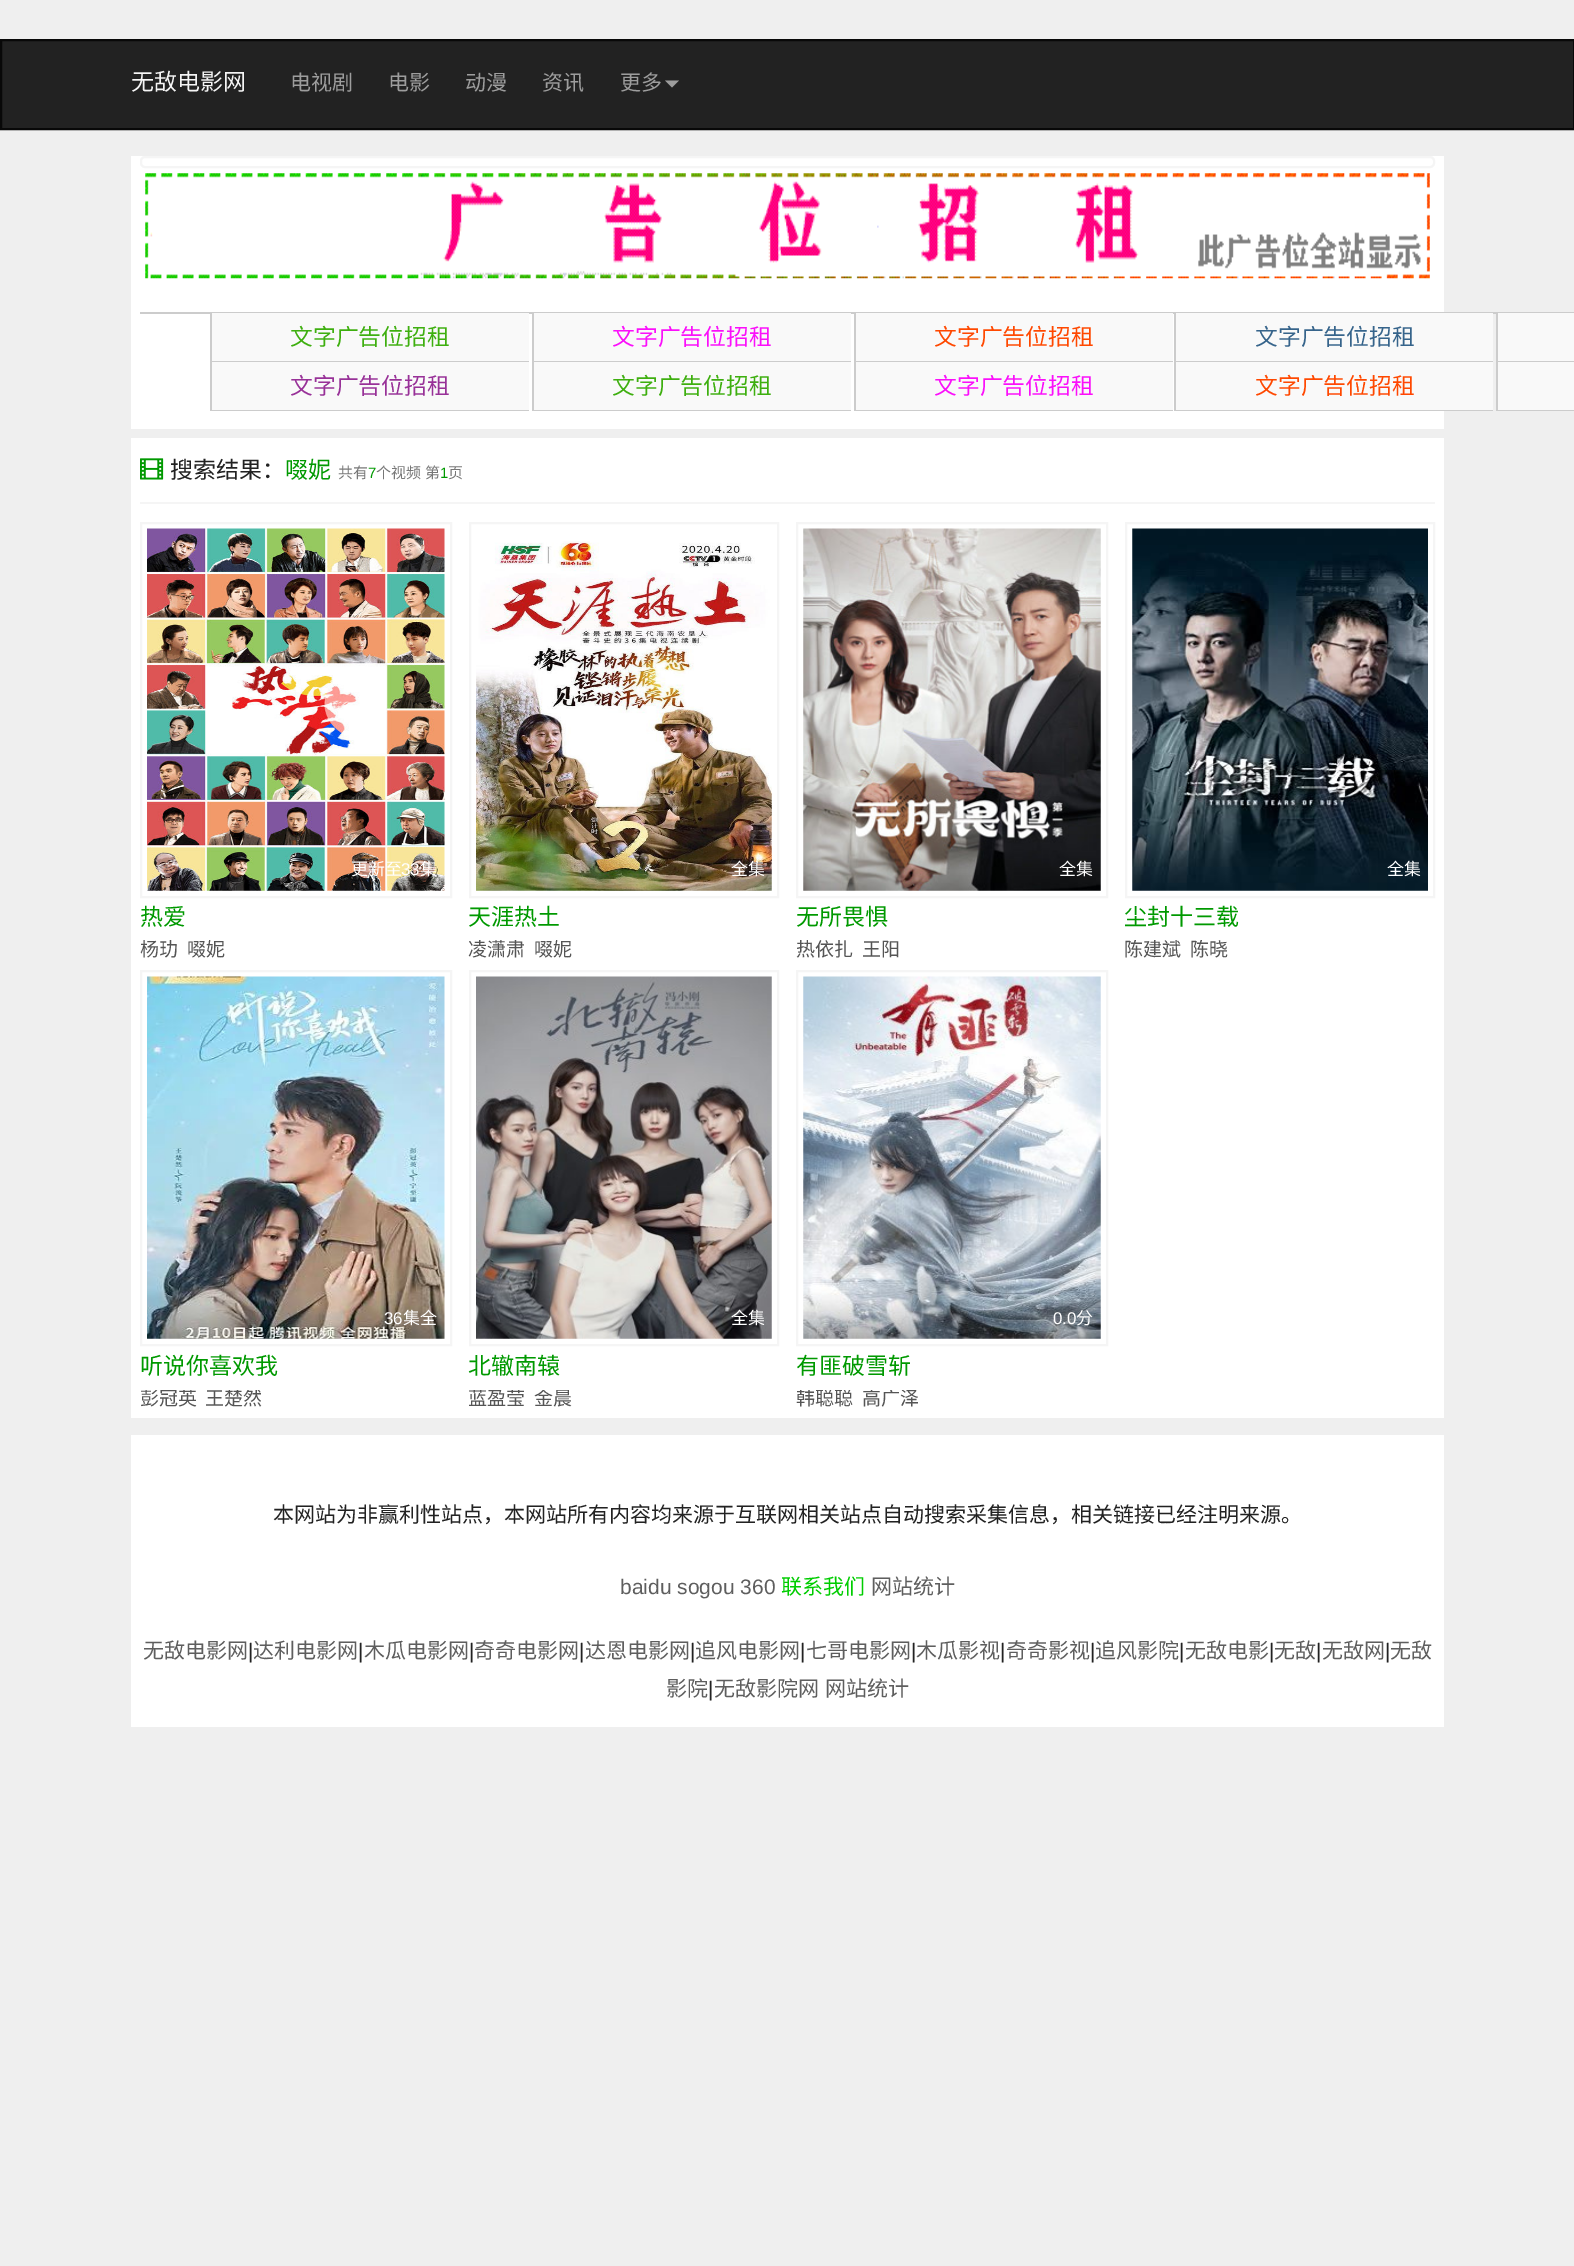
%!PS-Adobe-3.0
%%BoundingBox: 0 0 1574 2266
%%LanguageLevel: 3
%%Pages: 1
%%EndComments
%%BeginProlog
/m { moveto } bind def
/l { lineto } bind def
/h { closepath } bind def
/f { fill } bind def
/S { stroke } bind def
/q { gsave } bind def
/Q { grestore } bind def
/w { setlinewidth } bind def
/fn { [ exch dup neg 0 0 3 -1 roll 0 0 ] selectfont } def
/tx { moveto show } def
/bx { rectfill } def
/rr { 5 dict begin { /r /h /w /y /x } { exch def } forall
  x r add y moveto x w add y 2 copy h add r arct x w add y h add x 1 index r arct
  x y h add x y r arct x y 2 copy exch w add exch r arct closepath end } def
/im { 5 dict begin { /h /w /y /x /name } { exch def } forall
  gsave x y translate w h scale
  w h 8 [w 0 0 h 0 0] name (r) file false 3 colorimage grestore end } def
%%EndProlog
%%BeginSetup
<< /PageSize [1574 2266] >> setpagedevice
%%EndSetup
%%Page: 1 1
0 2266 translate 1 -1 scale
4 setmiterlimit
0.937 setgray
0 0 1574 2266 bx
0.133 setgray
1 40 m 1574 40 l 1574 129 l 1 129 l h q f Q
0.031 setgray
2 w
S
/NotoSansCJKSC-Regular 23 fn
0.961 setgray
(无敌电影网) 131 90 tx
/NotoSansCJKSC-Regular 21 fn
0.616 setgray
(电视剧) 290 90 tx
(电影) 388 90 tx
(动漫) 465 90 tx
(资讯) 542 90 tx
(更多) 620 90 tx
665 80.5 m 679 80.5 l 672 87.5 l h f
1 setgray
131 156 1313 273 bx
0.961 setgray
141 157 1293 10 4 rr S
(image0.raw) 145 173 1285 106 im
0.8 setgray
140 312 1434 2 bx
0.976 setgray
212 313 317 48 bx
0.8 setgray
210 361 319 1 bx
210 313 2 49 bx
/NotoSansCJKSC-Regular 22.75 fn
0.243 0.686 0.059 setrgbcolor
(文字广告位招租) 290 345 tx
0.976 setgray
534 313 317 48 bx
0.8 setgray
532 361 319 1 bx
532 313 2 49 bx
0.984 0.059 0.984 setrgbcolor
(文字广告位招租) 612 345 tx
0.976 setgray
856 313 317 48 bx
0.8 setgray
854 361 319 1 bx
854 313 2 49 bx
1 0.282 0 setrgbcolor
(文字广告位招租) 934 345 tx
0.976 setgray
1176 313 317 48 bx
0.8 setgray
1174 361 319 1 bx
1174 313 2 49 bx
0.212 0.392 0.545 setrgbcolor
(文字广告位招租) 1255 345 tx
0.976 setgray
1498 313 76 48 bx
0.8 setgray
1496 361 78 1 bx
1496 313 2 49 bx
0.976 setgray
212 362 317 48 bx
0.8 setgray
210 410 319 1 bx
210 362 2 49 bx
0.596 0.192 0.596 setrgbcolor
(文字广告位招租) 290 394 tx
0.976 setgray
534 362 317 48 bx
0.8 setgray
532 410 319 1 bx
532 362 2 49 bx
0.243 0.686 0.059 setrgbcolor
(文字广告位招租) 612 394 tx
0.976 setgray
856 362 317 48 bx
0.8 setgray
854 410 319 1 bx
854 362 2 49 bx
0.984 0.059 0.984 setrgbcolor
(文字广告位招租) 934 394 tx
0.976 setgray
1176 362 317 48 bx
0.8 setgray
1174 410 319 1 bx
1174 362 2 49 bx
1 0.282 0 setrgbcolor
(文字广告位招租) 1255 394 tx
0.976 setgray
1498 362 76 48 bx
0.8 setgray
1496 410 78 1 bx
1496 362 2 49 bx
1 setgray
131 438 1313 980 bx
0.961 setgray
140 502 1295 2 bx
(image1.raw) 140 458 24 22 im
/NotoSansCJKSC-Regular 23 fn
0.133 setgray
(搜索结果：) 170 478 tx
0 0.6 0 setrgbcolor
(啜妮) 285 478 tx
/NotoSansCJKSC-Regular 15 fn
0.467 setgray
(共有) 338 478 tx
/LiberationSans-Regular 15 fn
0 0.6 0 setrgbcolor
(7) 368 478 tx
/NotoSansCJKSC-Regular 15 fn
0.467 setgray
376 478 m 1 0 32 (个视频 第) widthshow
/LiberationSans-Regular 15 fn
0 0.6 0 setrgbcolor
(1) 440 478 tx
/NotoSansCJKSC-Regular 15 fn
0.467 setgray
(页) 448 478 tx
0.961 setgray
141 523 310 374 rectstroke
(image2.raw) 147 528 298 363 im
/NotoSansCJKSC-Regular 17 fn
1 setgray
(更新至) 351 875 tx
/LiberationSans-Regular 17 fn
(33) 401 875 tx
/NotoSansCJKSC-Regular 17 fn
(集) 420 875 tx
/NotoSansCJKSC-Regular 23 fn
0 0.6 0 setrgbcolor
(热爱) 140 925 tx
/NotoSansCJKSC-Regular 19 fn
0.333 setgray
(杨玏) 140 956 tx
(啜妮) 187 956 tx
0.961 setgray
470 523 308 374 rectstroke
(image3.raw) 476 541 296 350 im
/NotoSansCJKSC-Regular 17 fn
1 setgray
(全集) 731 875 tx
/NotoSansCJKSC-Regular 23 fn
0 0.6 0 setrgbcolor
(天涯热土) 468 925 tx
/NotoSansCJKSC-Regular 19 fn
0.333 setgray
(凌潇肃) 468 956 tx
(啜妮) 534 956 tx
0.961 setgray
797 523 310 374 rectstroke
(image4.raw) 803 528 298 363 im
/NotoSansCJKSC-Regular 17 fn
1 setgray
(全集) 1059 875 tx
/NotoSansCJKSC-Regular 23 fn
0 0.6 0 setrgbcolor
(无所畏惧) 796 925 tx
/NotoSansCJKSC-Regular 19 fn
0.333 setgray
(热依扎) 796 956 tx
(王阳) 862 956 tx
0.961 setgray
1126 523 308 374 rectstroke
(image5.raw) 1132 528 296 363 im
/NotoSansCJKSC-Regular 17 fn
1 setgray
(全集) 1387 875 tx
/NotoSansCJKSC-Regular 23 fn
0 0.6 0 setrgbcolor
(尘封十三载) 1124 925 tx
/NotoSansCJKSC-Regular 19 fn
0.333 setgray
(陈建斌) 1124 956 tx
(陈晓) 1190 956 tx
0.961 setgray
141 971 310 374 rectstroke
(image6.raw) 147 976 298 363 im
/LiberationSans-Regular 17 fn
1 setgray
(36) 384 1324 tx
/NotoSansCJKSC-Regular 17 fn
(集全) 403 1324 tx
/NotoSansCJKSC-Regular 23 fn
0 0.6 0 setrgbcolor
(听说你喜欢我) 140 1374 tx
q
140 1390 312 19 rectclip
/NotoSansCJKSC-Regular 19 fn
0.333 setgray
(彭冠英) 140 1405 tx
(王楚然) 205 1405 tx
Q
0.961 setgray
470 971 308 374 rectstroke
(image7.raw) 476 976 296 363 im
/NotoSansCJKSC-Regular 17 fn
1 setgray
(全集) 731 1324 tx
/NotoSansCJKSC-Regular 23 fn
0 0.6 0 setrgbcolor
(北辙南辕) 468 1374 tx
q
469 1390 310 19 rectclip
/NotoSansCJKSC-Regular 19 fn
0.333 setgray
(蓝盈莹) 468 1405 tx
(金晨) 534 1405 tx
Q
0.961 setgray
797 971 310 374 rectstroke
(image8.raw) 803 976 298 363 im
/LiberationSans-Regular 17 fn
1 setgray
(0.0) 1053 1324 tx
/NotoSansCJKSC-Regular 17 fn
(分) 1076 1324 tx
/NotoSansCJKSC-Regular 23 fn
0 0.6 0 setrgbcolor
(有匪破雪斩) 796 1374 tx
q
796 1390 312 19 rectclip
/NotoSansCJKSC-Regular 19 fn
0.333 setgray
(韩聪聪) 796 1405 tx
(高广泽) 862 1405 tx
Q
1 setgray
131 1435 1313 292 bx
/NotoSansCJKSC-Regular 21 fn
0.133 setgray
(本网站为非赢利性站点，本网站所有内容均来源于互联网相关站点自动搜索采集信息，相关链接已经注明来源。) 273 1522 tx
/LiberationSans-Regular 21 fn
0.369 setgray
(baidu sogou 360) 620 1594 tx
/NotoSansCJKSC-Regular 21 fn
0 0.804 0 setrgbcolor
(联系我们) 781 1594 tx
0.369 setgray
(网站统计) 871 1594 tx
(无敌电影网) 143 1658 tx
/LiberationSans-Regular 21 fn
0.133 setgray
(|) 248 1658 tx
/NotoSansCJKSC-Regular 21 fn
0.369 setgray
(达利电影网) 253 1658 tx
/LiberationSans-Regular 21 fn
0.133 setgray
(|) 358 1658 tx
/NotoSansCJKSC-Regular 21 fn
0.369 setgray
(木瓜电影网) 364 1658 tx
/LiberationSans-Regular 21 fn
0.133 setgray
(|) 469 1658 tx
/NotoSansCJKSC-Regular 21 fn
0.369 setgray
(奇奇电影网) 474 1658 tx
/LiberationSans-Regular 21 fn
0.133 setgray
(|) 579 1658 tx
/NotoSansCJKSC-Regular 21 fn
0.369 setgray
(达恩电影网) 585 1658 tx
/LiberationSans-Regular 21 fn
0.133 setgray
(|) 690 1658 tx
/NotoSansCJKSC-Regular 21 fn
0.369 setgray
(追风电影网) 695 1658 tx
/LiberationSans-Regular 21 fn
0.133 setgray
(|) 800 1658 tx
/NotoSansCJKSC-Regular 21 fn
0.369 setgray
(七哥电影网) 806 1658 tx
/LiberationSans-Regular 21 fn
0.133 setgray
(|) 911 1658 tx
/NotoSansCJKSC-Regular 21 fn
0.369 setgray
(木瓜影视) 916 1658 tx
/LiberationSans-Regular 21 fn
0.133 setgray
(|) 1000 1658 tx
/NotoSansCJKSC-Regular 21 fn
0.369 setgray
(奇奇影视) 1006 1658 tx
/LiberationSans-Regular 21 fn
0.133 setgray
(|) 1090 1658 tx
/NotoSansCJKSC-Regular 21 fn
0.369 setgray
(追风影院) 1095 1658 tx
/LiberationSans-Regular 21 fn
0.133 setgray
(|) 1179 1658 tx
/NotoSansCJKSC-Regular 21 fn
0.369 setgray
(无敌电影) 1185 1658 tx
/LiberationSans-Regular 21 fn
0.133 setgray
(|) 1269 1658 tx
/NotoSansCJKSC-Regular 21 fn
0.369 setgray
(无敌) 1274 1658 tx
/LiberationSans-Regular 21 fn
0.133 setgray
(|) 1316 1658 tx
/NotoSansCJKSC-Regular 21 fn
0.369 setgray
(无敌网) 1322 1658 tx
/LiberationSans-Regular 21 fn
0.133 setgray
(|) 1385 1658 tx
/NotoSansCJKSC-Regular 21 fn
0.369 setgray
(无敌) 1390 1658 tx
(影院) 666 1696 tx
/LiberationSans-Regular 21 fn
0.133 setgray
(|) 708 1696 tx
/NotoSansCJKSC-Regular 21 fn
0.369 setgray
(无敌影院网) 714 1696 tx
(网站统计) 825 1696 tx
showpage
%%EOF
